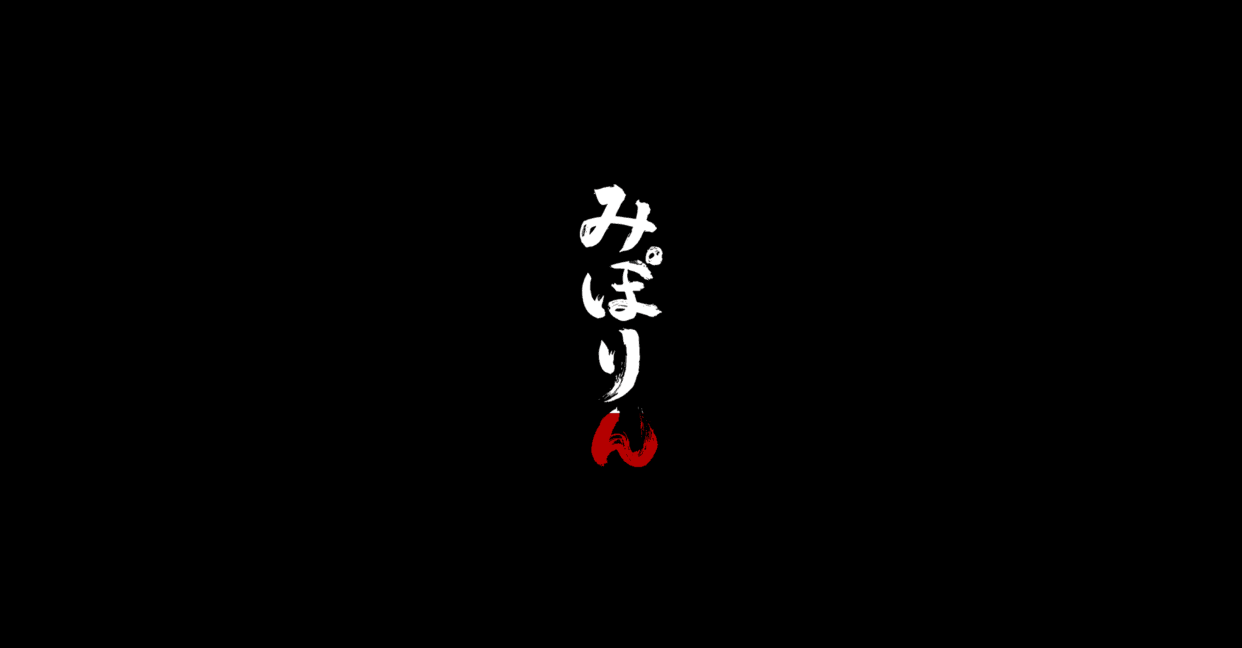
%!PS-Adobe-3.0
%%BoundingBox: 0 0 1242 648
%%LanguageLevel: 3
%%Pages: 1
%%EndComments
%%BeginProlog
/bx { rectfill } def
/im { 5 dict begin { /h /w /y /x /name } { exch def } forall
  gsave x y translate w h scale
  w h 8 [w 0 0 h 0 0] name (r) file false 3 colorimage grestore end } def
%%EndProlog
%%BeginSetup
<< /PageSize [1242 648] >> setpagedevice
%%EndSetup
%%Page: 1 1
0 648 translate 1 -1 scale
4 setmiterlimit
0 setgray
0 0 1242 648 bx
(image0.raw) 579 184 84 284 im
showpage
%%EOF
